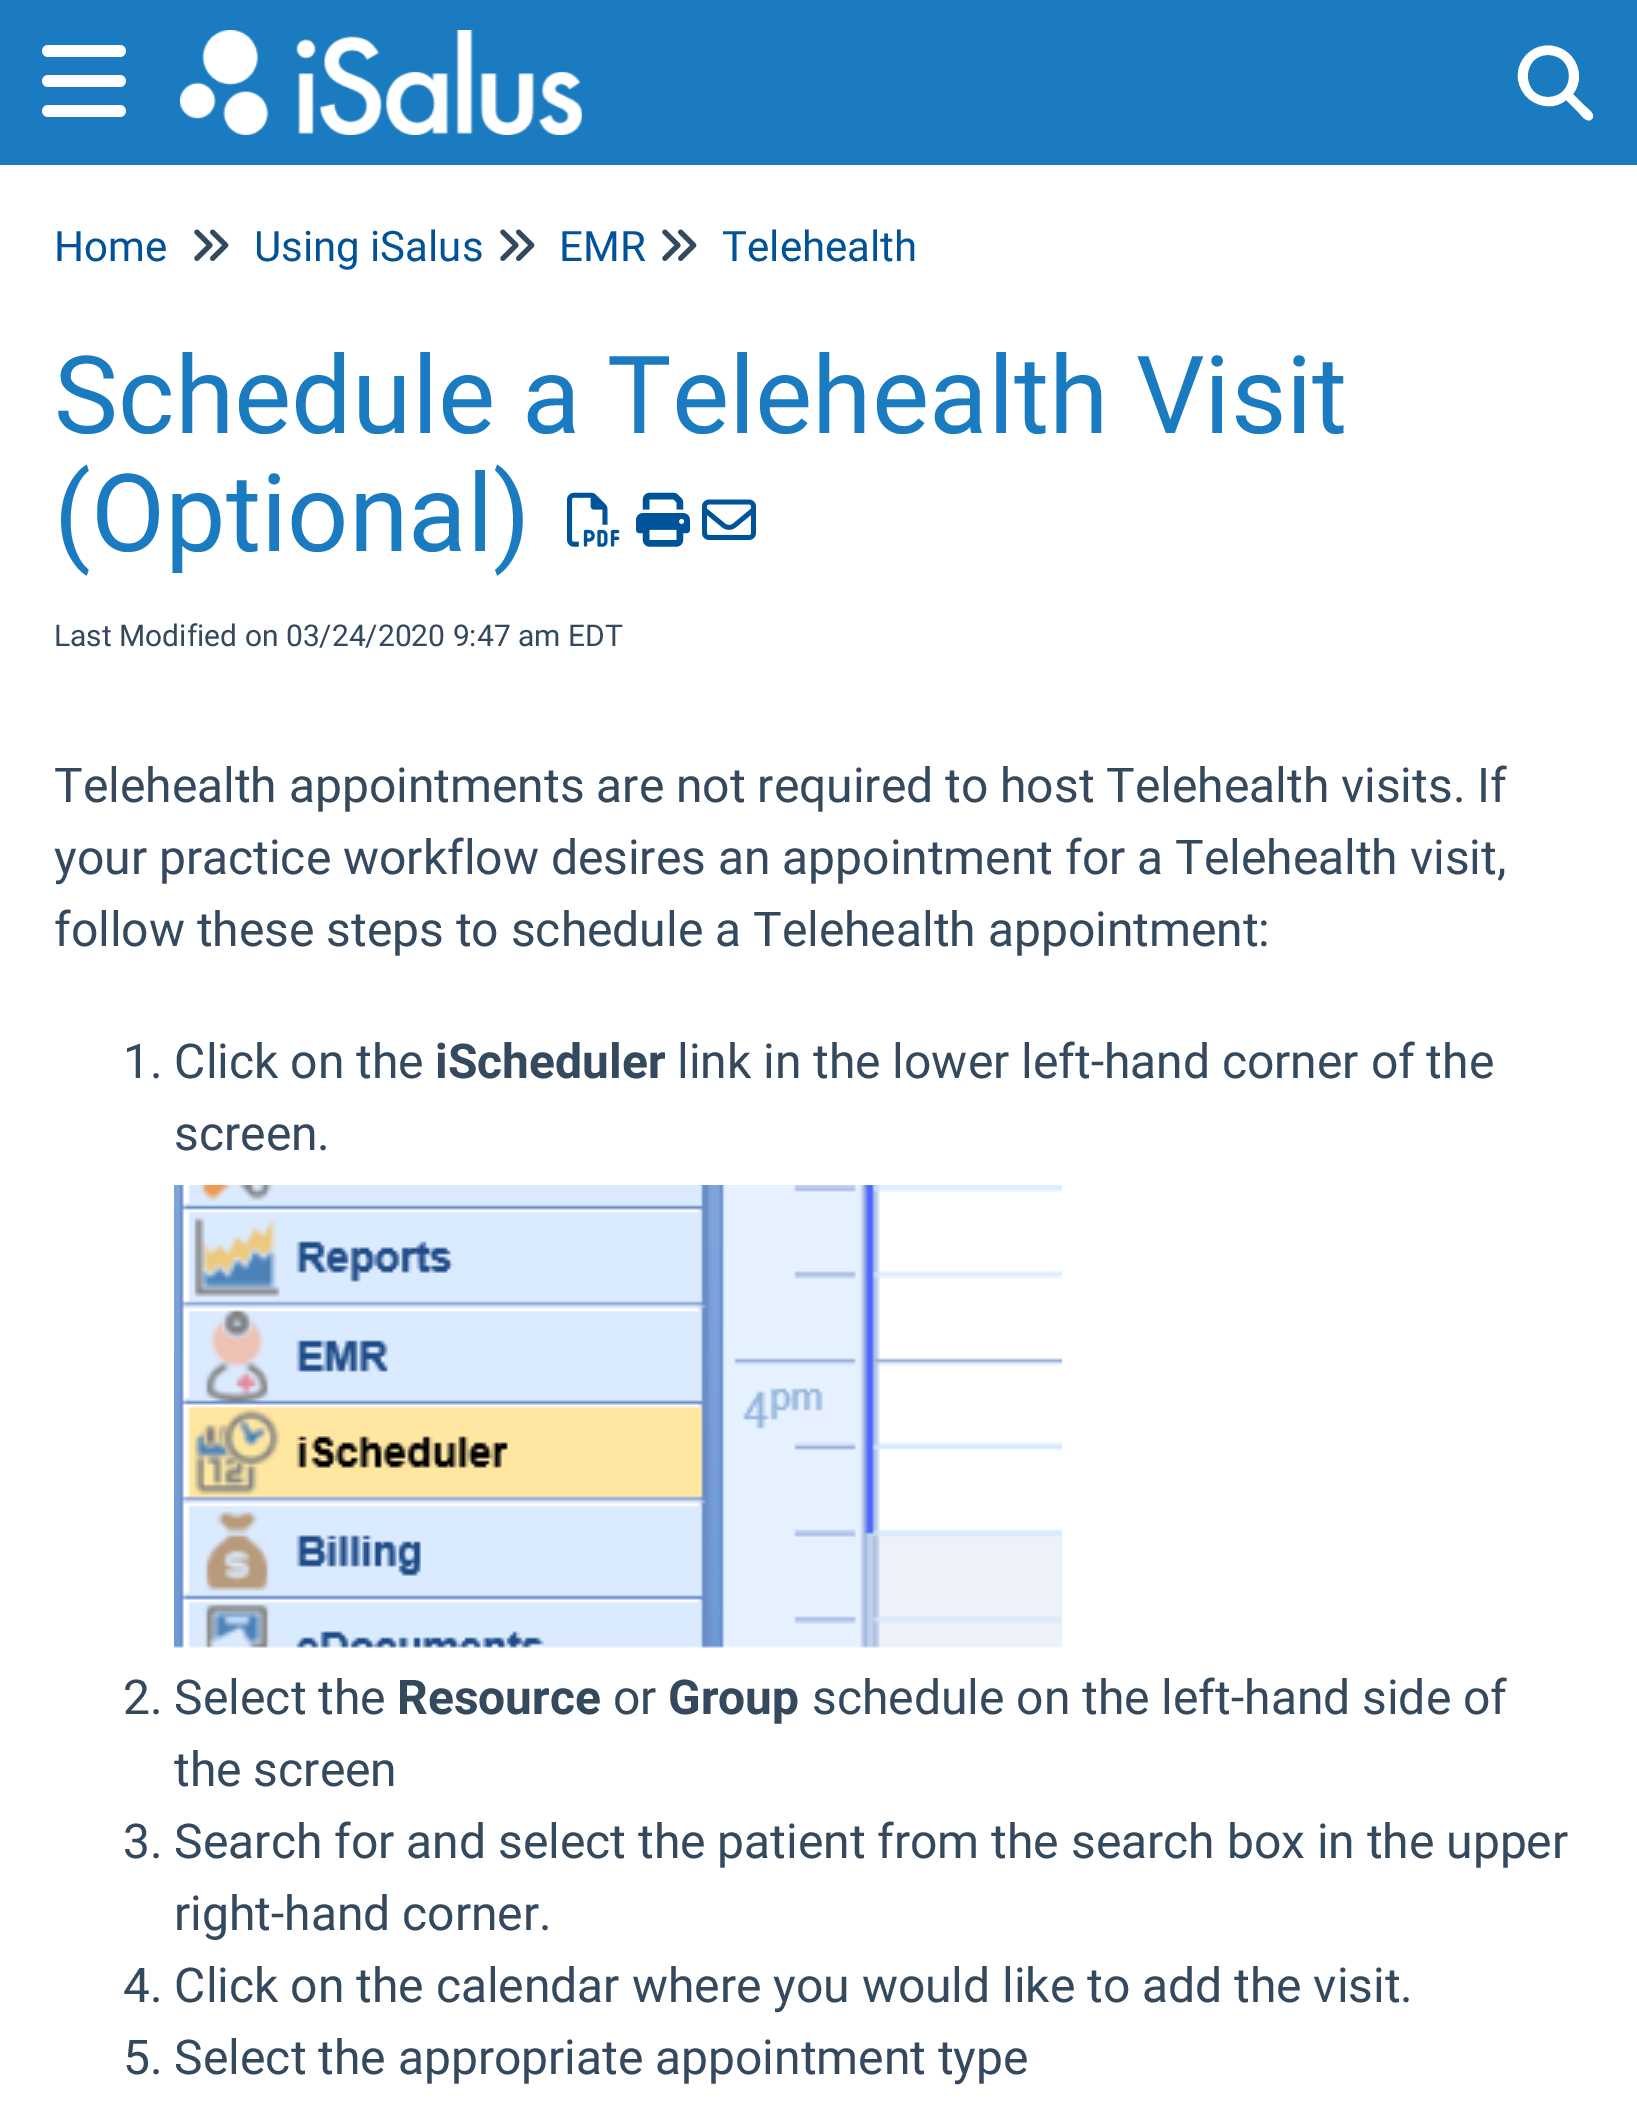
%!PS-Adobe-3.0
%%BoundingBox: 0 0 1637 2127
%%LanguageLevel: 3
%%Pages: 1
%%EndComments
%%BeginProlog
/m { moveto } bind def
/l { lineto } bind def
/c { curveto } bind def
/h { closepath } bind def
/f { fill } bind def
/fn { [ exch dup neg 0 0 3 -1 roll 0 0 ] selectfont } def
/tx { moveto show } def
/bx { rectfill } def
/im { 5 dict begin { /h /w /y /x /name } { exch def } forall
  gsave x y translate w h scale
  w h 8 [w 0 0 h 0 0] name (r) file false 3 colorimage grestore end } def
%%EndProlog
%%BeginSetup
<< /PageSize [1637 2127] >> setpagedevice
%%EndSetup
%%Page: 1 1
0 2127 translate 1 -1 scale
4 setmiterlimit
1 setgray
0 0 1637 2127 bx
0.102 0.482 0.757 setrgbcolor
0 0 1637 165 bx
(image0.raw) 42 45 84 72 im
(image1.raw) 180 30 402 105 im
1 setgray
1579 76 m 1579 83 1577 89 1573 94 c 1585 106 l 1588 109 1596 114 1592 119 c 1587 124 1581 115 1579 113 c 1566 100 l 1556 109 1540 108 1529 99 c 1523 94 1519 87 1518 79 c 1517 72 1519 65 1523 59 c 1540 34 1578 46 1579 76 c h 1548 97 m 1576 97 1576 55 1548 55 c 1521 55 1521 97 1548 97 c h f
/Roboto-Regular 42 fn
0 0.325 0.6 setrgbcolor
(Home) 54 261 tx
(image2.raw) 194 229 35 32 im
(Using iSalus) 254 261 tx
(image2.raw) 500 229 35 32 im
(EMR) 559 261 tx
(image2.raw) 662 229 35 32 im
(Telehealth) 722 261 tx
/Roboto-Regular 108 fn
0.102 0.482 0.757 setrgbcolor
(Schedule a Telehealth Visit) 54 433 tx
(\(Optional\)) 54 551 tx
(image3.raw) 567 492 53 55 im
(image4.raw) 636 492 54 55 im
(image5.raw) 702 499 54 41 im
/Roboto-Regular 30 fn
0.204 0.286 0.369 setrgbcolor
(Last Modified on 03/24/2020 9:47 am EDT) 54 646 tx
/Roboto-Regular 48 fn
(Telehealth appointments are not required to host Telehealth visits. If) 54 802 tx
(your practice workflow desires an appointment for a Telehealth visit,) 54 874 tx
(follow these steps to schedule a Telehealth appointment:) 54 946 tx
(1. Click on the) 123 1078 tx
/Roboto-Bold 48 fn
(iScheduler) 435 1078 tx
/Roboto-Regular 48 fn
(link in the lower left-hand corner of the) 677 1078 tx
(screen.) 174 1150 tx
(image6.raw) 174 1185 888 463 im
(2. Select the) 123 1714 tx
/Roboto-Bold 48 fn
(Resource) 397 1714 tx
/Roboto-Regular 48 fn
(or) 613 1714 tx
/Roboto-Bold 48 fn
(Group) 668 1714 tx
/Roboto-Regular 48 fn
(schedule on the left-hand side of) 812 1714 tx
(the screen) 174 1786 tx
(3. Search for and select the patient from the search box in the upper) 123 1858 tx
(right-hand corner.) 174 1930 tx
(4. Click on the calendar where you would like to add the visit.) 123 2002 tx
(5. Select the appropriate appointment type) 123 2074 tx
showpage
%%EOF
